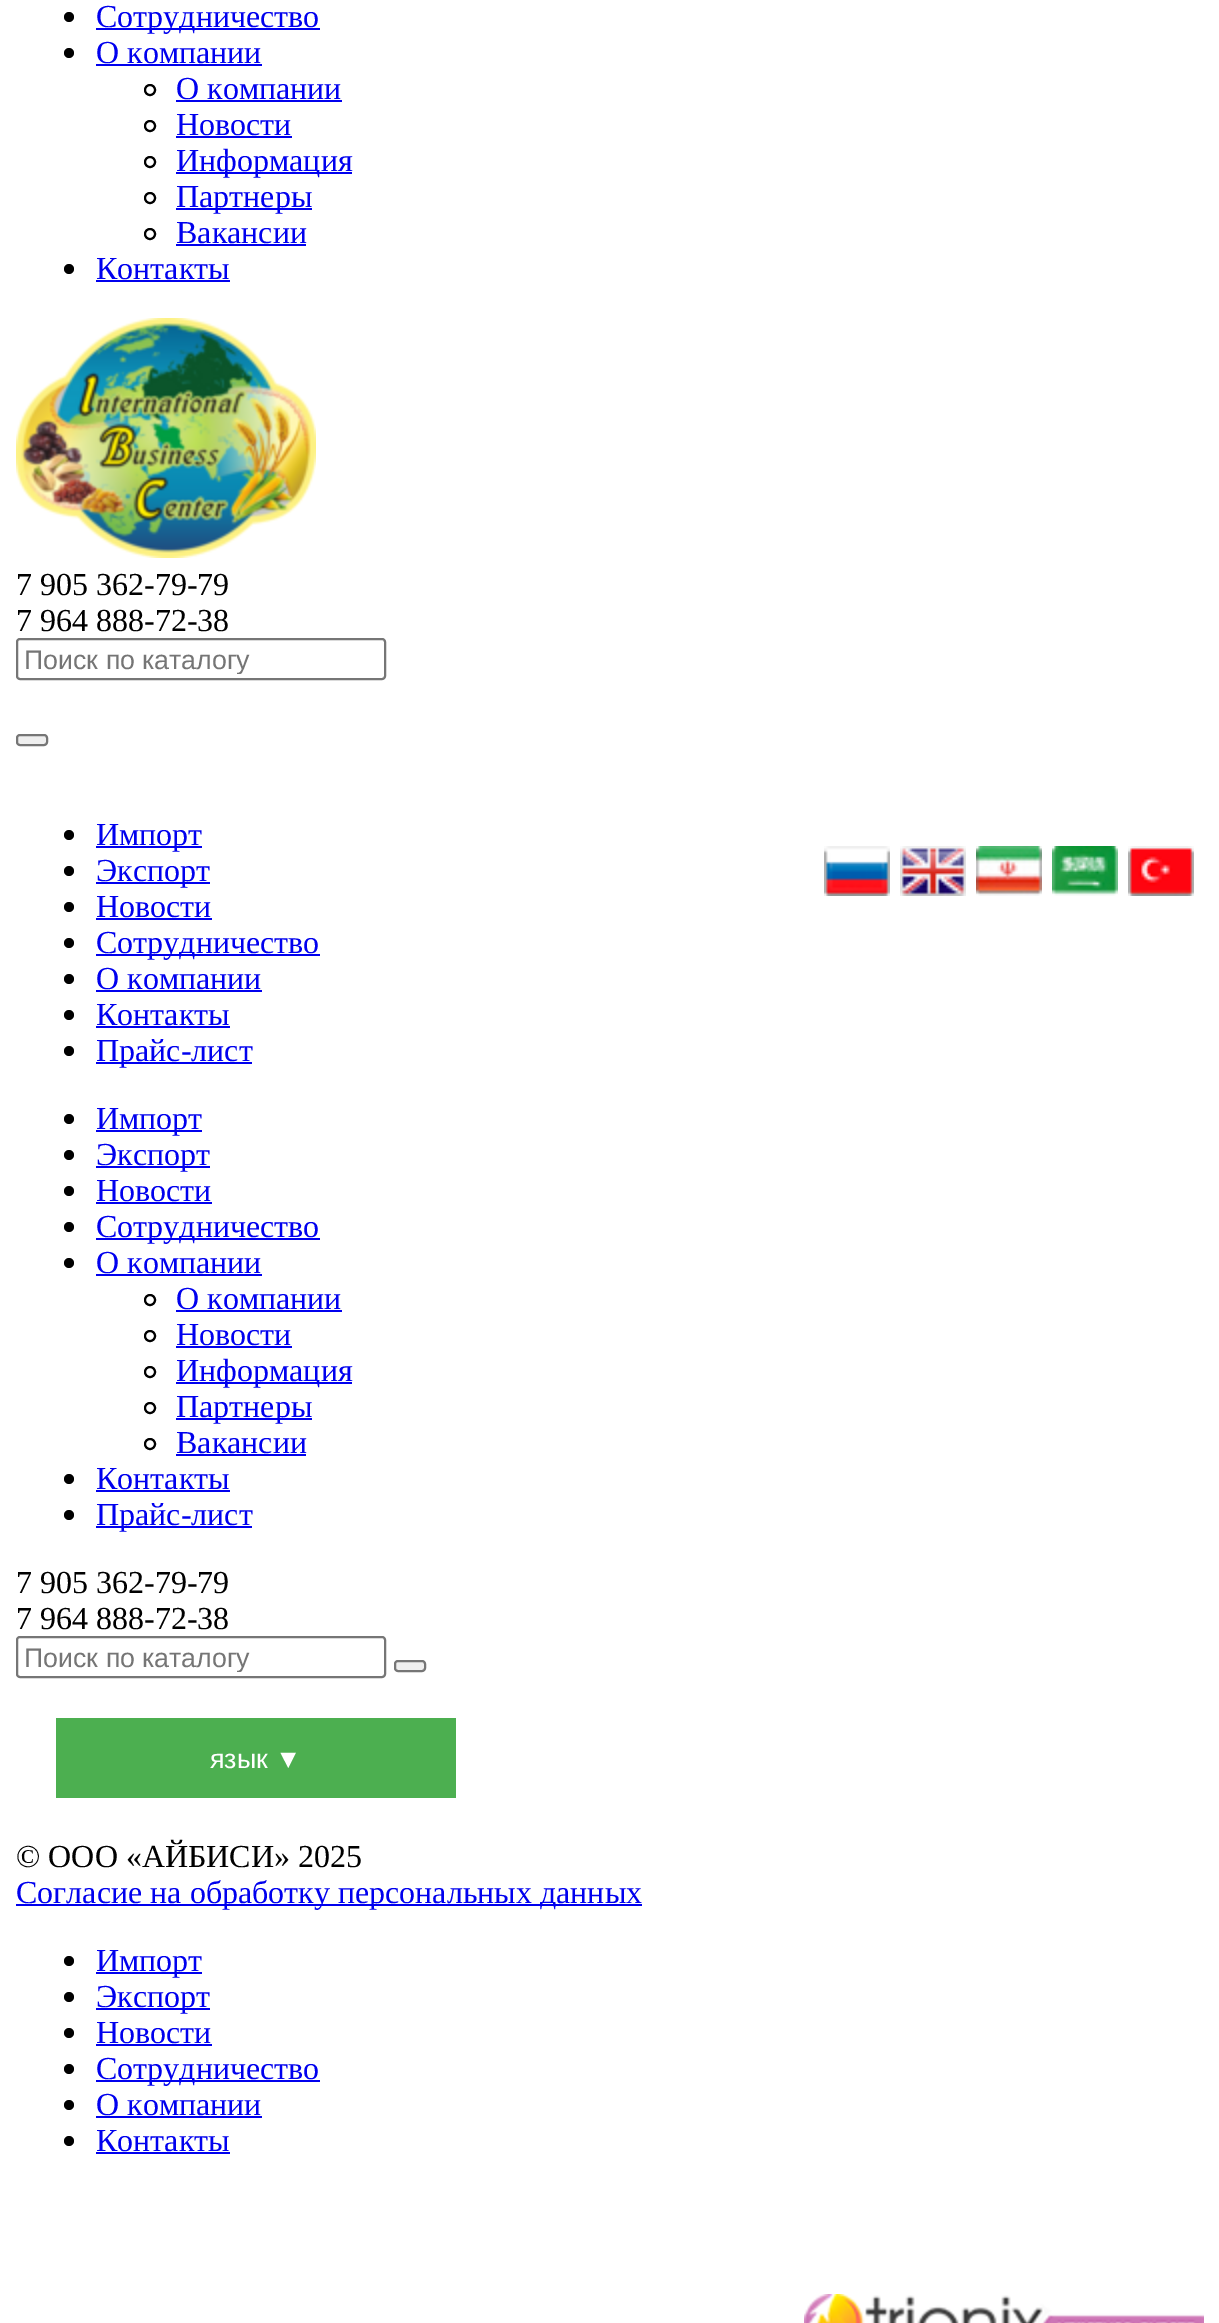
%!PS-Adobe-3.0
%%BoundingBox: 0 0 1219 2323
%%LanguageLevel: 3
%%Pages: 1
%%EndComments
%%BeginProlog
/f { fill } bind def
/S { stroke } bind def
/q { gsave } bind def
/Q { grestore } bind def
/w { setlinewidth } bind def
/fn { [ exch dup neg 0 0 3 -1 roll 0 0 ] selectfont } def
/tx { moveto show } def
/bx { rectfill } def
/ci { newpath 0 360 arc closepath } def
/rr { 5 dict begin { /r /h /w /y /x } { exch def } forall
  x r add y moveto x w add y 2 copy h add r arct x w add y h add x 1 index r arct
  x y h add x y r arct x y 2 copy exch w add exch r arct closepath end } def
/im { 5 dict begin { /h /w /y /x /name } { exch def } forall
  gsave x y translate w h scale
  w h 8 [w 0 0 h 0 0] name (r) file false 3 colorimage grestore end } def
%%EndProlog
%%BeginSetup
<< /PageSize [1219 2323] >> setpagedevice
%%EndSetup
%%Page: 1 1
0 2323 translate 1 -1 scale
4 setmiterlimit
1 setgray
0 0 1219 2323 bx
0 setgray
69 17 5 ci f
0 0 0.933 setrgbcolor
96 28 224 2 bx
/LiberationSerif-Regular 32 fn
(Сотрудничество) 96 27 tx
0 setgray
69 53 5 ci f
0 0 0.933 setrgbcolor
(О компании) 96 63 tx
96 64 166 2 bx
0 setgray
2 w
150 90 5 ci S
0 0 0.933 setrgbcolor
(О компании) 176 99 tx
176 100 166 2 bx
0 setgray
150 126 5 ci S
0 0 0.933 setrgbcolor
(Новости) 176 135 tx
176 136 116 2 bx
0 setgray
150 162 5 ci S
0 0 0.933 setrgbcolor
176 172 176 2 bx
(Информация) 176 171 tx
0 setgray
150 198 5 ci S
0 0 0.933 setrgbcolor
176 208 136 2 bx
(Партнеры) 176 207 tx
0 setgray
150 234 5 ci S
0 0 0.933 setrgbcolor
(Вакансии) 176 243 tx
176 244 130 2 bx
0 setgray
69 269 5 ci f
0 0 0.933 setrgbcolor
(Контакты) 96 279 tx
96 280 134 2 bx
(image0.raw) 16 318 300 240 im
0 setgray
(7 905 362-79-79) 16 595 tx
(7 964 888-72-38) 16 631 tx
0.463 setgray
17 639 368 40 3 rr S
q
24 644 354 30 rectclip
/LiberationSans-Regular 26.75 fn
0.459 setgray
(Поиск по каталогу) 24 669 tx
Q
0.937 setgray
17 735 30 10 3 rr q f Q
0.463 setgray
S
0 setgray
69 835 5 ci f
0 0 0.933 setrgbcolor
96 846 106 2 bx
(Импорт) 96 845 tx
0 setgray
69 871 5 ci f
0 0 0.933 setrgbcolor
96 882 114 2 bx
(Экспорт) 96 881 tx
0 setgray
69 907 5 ci f
0 0 0.933 setrgbcolor
(Новости) 96 917 tx
96 918 116 2 bx
0 setgray
69 943 5 ci f
0 0 0.933 setrgbcolor
96 954 224 2 bx
(Сотрудничество) 96 953 tx
0 setgray
69 979 5 ci f
0 0 0.933 setrgbcolor
(О компании) 96 989 tx
96 990 166 2 bx
0 setgray
69 1015 5 ci f
0 0 0.933 setrgbcolor
(Контакты) 96 1025 tx
96 1026 134 2 bx
0 setgray
69 1051 5 ci f
0 0 0.933 setrgbcolor
96 1062 156 2 bx
(Прайс-лист) 96 1061 tx
(image1.raw) 824 846 66 50 im
(image2.raw) 900 846 66 50 im
(image3.raw) 976 846 66 50 im
(image4.raw) 1052 846 66 50 im
(image5.raw) 1128 846 66 50 im
0 setgray
69 1119 5 ci f
0 0 0.933 setrgbcolor
96 1130 106 2 bx
(Импорт) 96 1129 tx
0 setgray
69 1155 5 ci f
0 0 0.933 setrgbcolor
96 1166 114 2 bx
(Экспорт) 96 1165 tx
0 setgray
69 1191 5 ci f
0 0 0.933 setrgbcolor
(Новости) 96 1201 tx
96 1202 116 2 bx
0 setgray
69 1227 5 ci f
0 0 0.933 setrgbcolor
96 1238 224 2 bx
(Сотрудничество) 96 1237 tx
0 setgray
69 1263 5 ci f
0 0 0.933 setrgbcolor
(О компании) 96 1273 tx
96 1274 166 2 bx
0 setgray
150 1300 5 ci S
0 0 0.933 setrgbcolor
(О компании) 176 1309 tx
176 1310 166 2 bx
0 setgray
150 1336 5 ci S
0 0 0.933 setrgbcolor
(Новости) 176 1345 tx
176 1346 116 2 bx
0 setgray
150 1372 5 ci S
0 0 0.933 setrgbcolor
176 1382 176 2 bx
(Информация) 176 1381 tx
0 setgray
150 1408 5 ci S
0 0 0.933 setrgbcolor
176 1418 136 2 bx
(Партнеры) 176 1417 tx
0 setgray
150 1444 5 ci S
0 0 0.933 setrgbcolor
(Вакансии) 176 1453 tx
176 1454 130 2 bx
0 setgray
69 1479 5 ci f
0 0 0.933 setrgbcolor
(Контакты) 96 1489 tx
96 1490 134 2 bx
0 setgray
69 1515 5 ci f
0 0 0.933 setrgbcolor
96 1526 156 2 bx
(Прайс-лист) 96 1525 tx
0 setgray
(7 905 362-79-79) 16 1593 tx
(7 964 888-72-38) 16 1629 tx
0.463 setgray
17 1637 368 40 3 rr S
q
24 1642 354 30 rectclip
/LiberationSans-Regular 26.75 fn
0.459 setgray
(Поиск по каталогу) 24 1667 tx
Q
0.937 setgray
395 1661 30 10 3 rr q f Q
0.463 setgray
S
0.298 0.686 0.314 setrgbcolor
56 1718 400 80 bx
/LiberationSans-Regular 26.75 fn
1 setgray
(язык ▼) 210 1768 tx
/LiberationSerif-Regular 32 fn
0 setgray
(© ООО «АЙБИСИ» 2025) 16 1867 tx
0 0 0.933 setrgbcolor
16 1904 626 2 bx
(Согласие на обработку персональных данных) 16 1903 tx
0 setgray
69 1961 5 ci f
0 0 0.933 setrgbcolor
96 1972 106 2 bx
(Импорт) 96 1971 tx
0 setgray
69 1997 5 ci f
0 0 0.933 setrgbcolor
96 2008 114 2 bx
(Экспорт) 96 2007 tx
0 setgray
69 2033 5 ci f
0 0 0.933 setrgbcolor
(Новости) 96 2043 tx
96 2044 116 2 bx
0 setgray
69 2069 5 ci f
0 0 0.933 setrgbcolor
96 2080 224 2 bx
(Сотрудничество) 96 2079 tx
0 setgray
69 2105 5 ci f
0 0 0.933 setrgbcolor
(О компании) 96 2115 tx
96 2116 166 2 bx
0 setgray
69 2141 5 ci f
0 0 0.933 setrgbcolor
(Контакты) 96 2151 tx
96 2152 134 2 bx
(image6.raw) 804 2294 400 29 im
showpage
%%EOF
